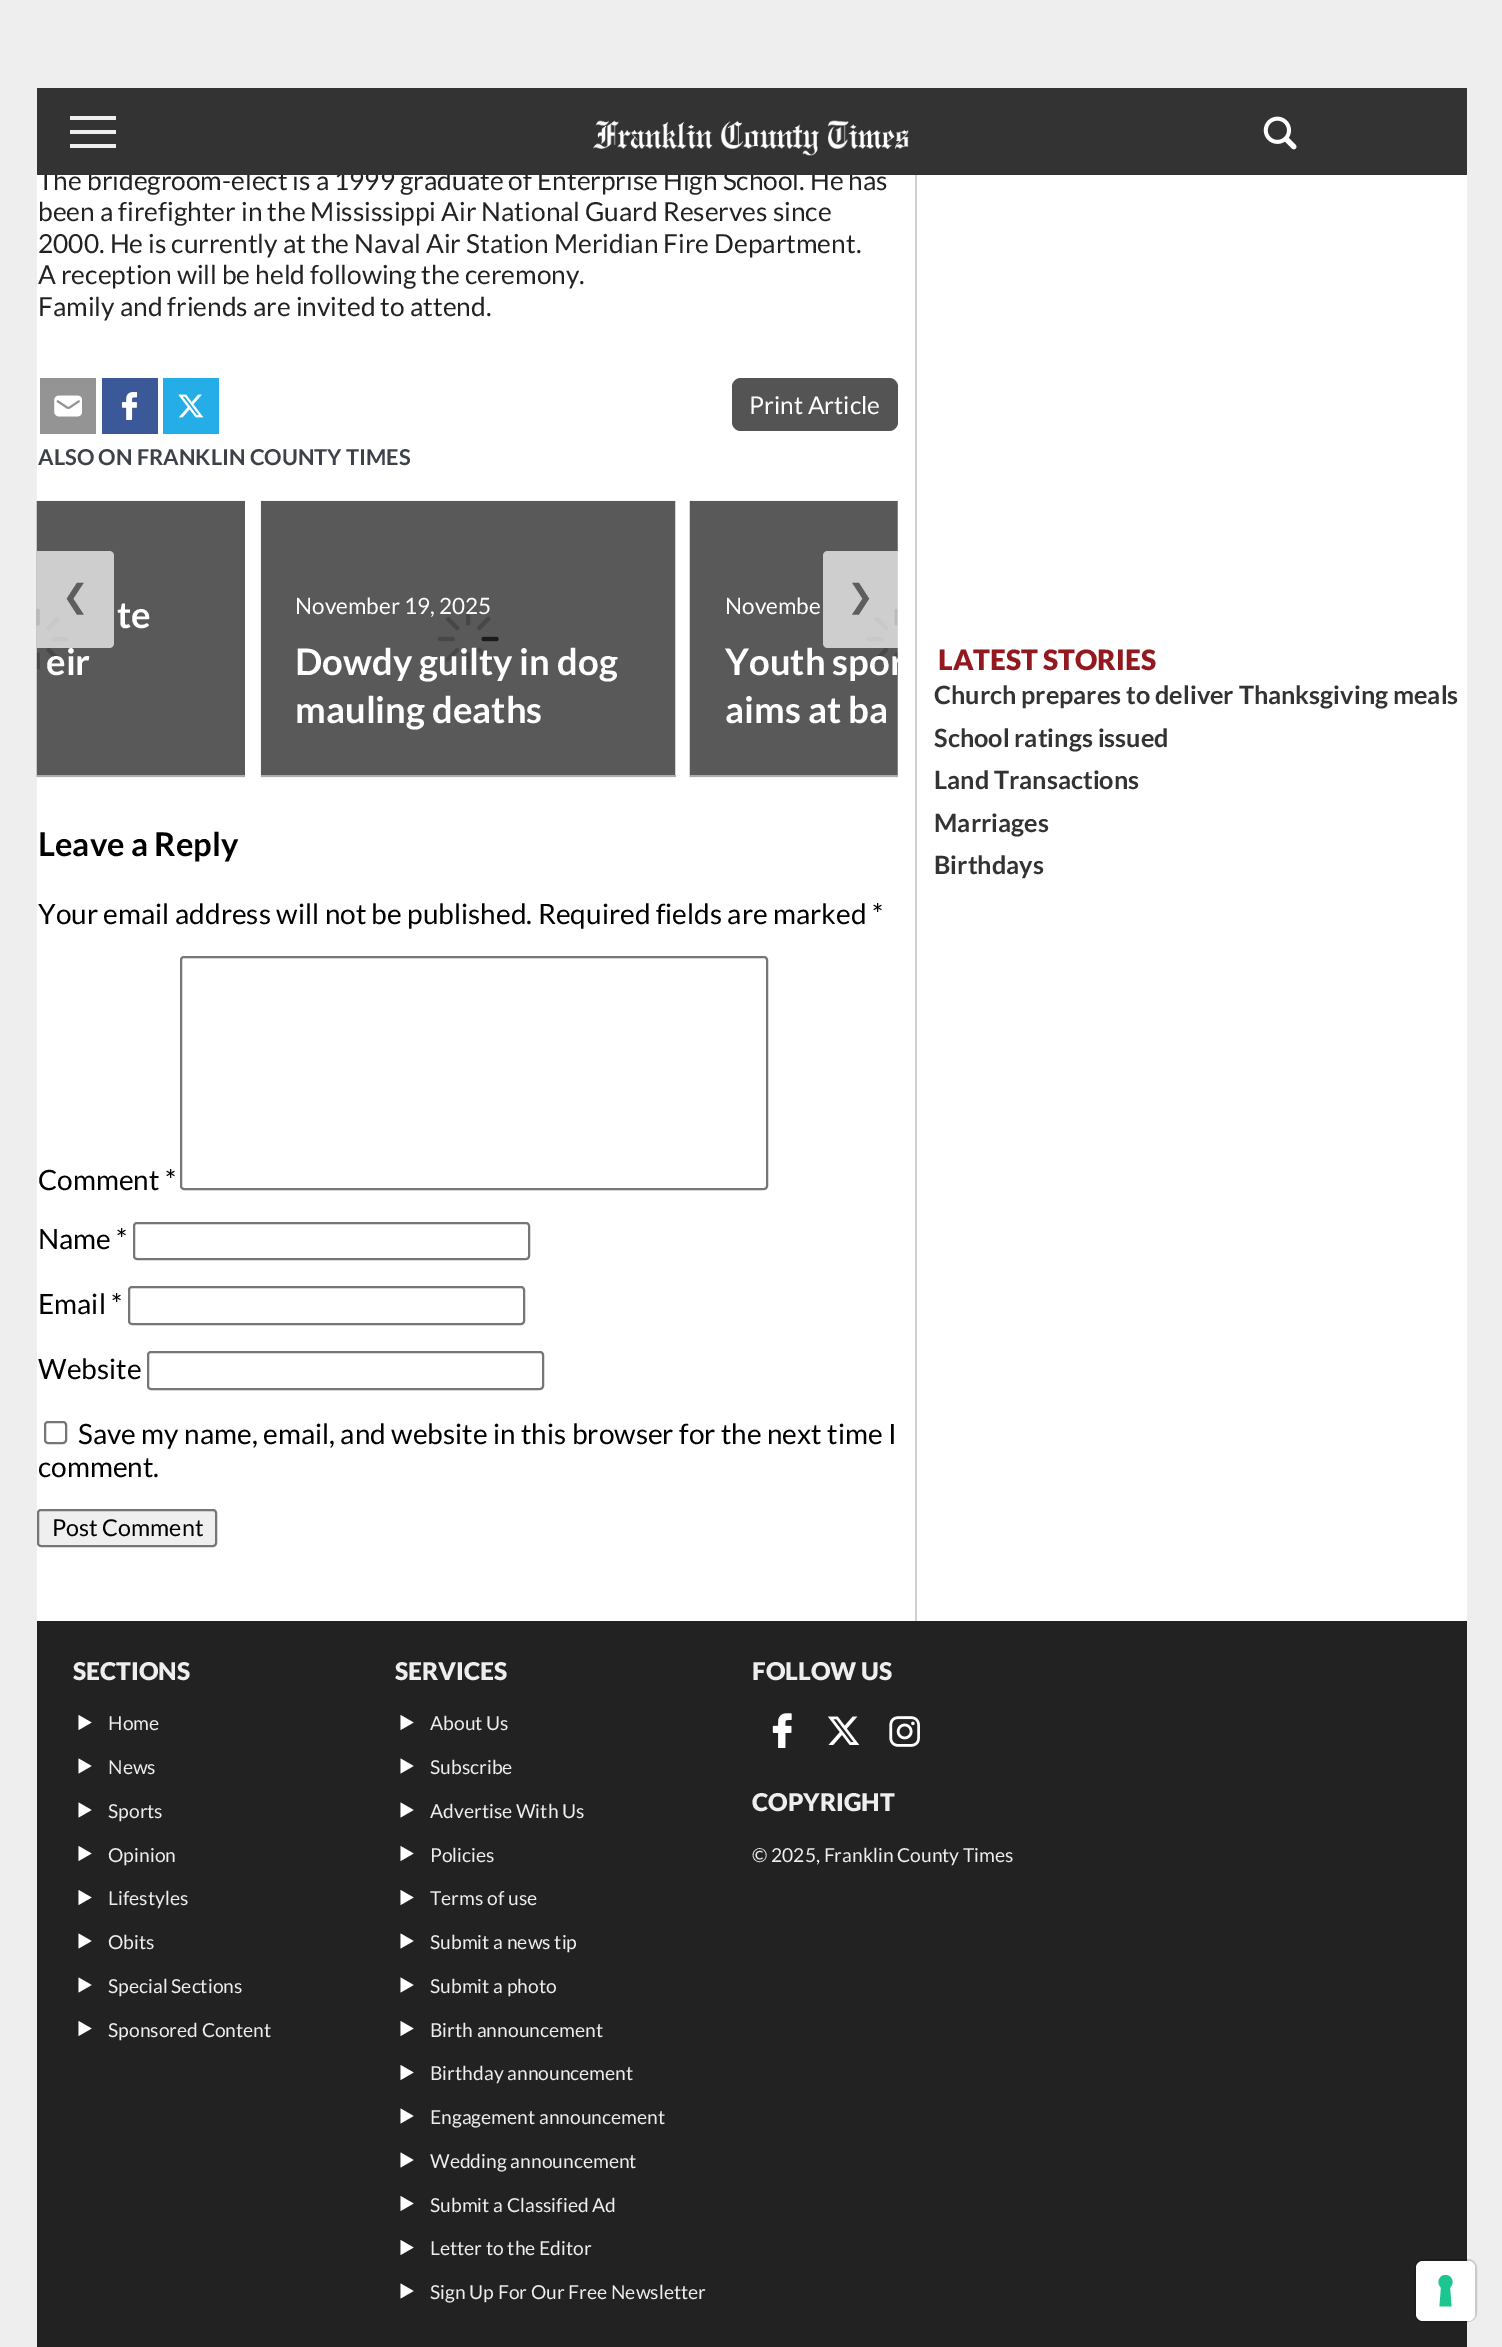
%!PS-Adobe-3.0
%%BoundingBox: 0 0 1502 2347
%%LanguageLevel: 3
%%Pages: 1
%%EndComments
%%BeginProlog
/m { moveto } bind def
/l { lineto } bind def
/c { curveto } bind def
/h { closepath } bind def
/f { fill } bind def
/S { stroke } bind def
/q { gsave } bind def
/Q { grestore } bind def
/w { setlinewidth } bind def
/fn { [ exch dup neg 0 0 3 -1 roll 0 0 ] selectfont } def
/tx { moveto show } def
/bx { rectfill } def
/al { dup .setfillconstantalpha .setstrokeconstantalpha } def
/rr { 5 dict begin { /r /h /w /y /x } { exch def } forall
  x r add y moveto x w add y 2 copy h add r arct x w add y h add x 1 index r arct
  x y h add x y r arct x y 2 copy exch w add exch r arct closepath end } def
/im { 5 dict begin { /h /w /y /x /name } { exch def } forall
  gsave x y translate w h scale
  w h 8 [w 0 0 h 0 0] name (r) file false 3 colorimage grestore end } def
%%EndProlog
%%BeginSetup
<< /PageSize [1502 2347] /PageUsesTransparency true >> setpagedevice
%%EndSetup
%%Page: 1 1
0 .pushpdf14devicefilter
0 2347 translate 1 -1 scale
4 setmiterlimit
0.933 setgray
0 0 1502 2347 bx
1 setgray
37 175 1430 1446 bx
/Lato-Regular 26.25 fn
0.133 setgray
(The bridegroom-elect is a 1999 graduate of Enterprise High School. He has) 38 190 tx
0.2 setgray
37 88 1430 87 bx
0.933 setgray
70 130 46 4 bx
70 116 46 4 bx
70 144 46 4 bx
(image0.raw) 593 120 316 36 im
(image1.raw) 1263 116 34 34 im
0.812 setgray
915 175 2 1446 bx
0.133 setgray
(been a firefighter in the Mississippi Air National Guard Reserves since) 38 221 tx
(2000. He is currently at the Naval Air Station Meridian Fire Department.) 38 253 tx
(A reception will be held following the ceremony.) 38 284 tx
(Family and friends are invited to attend.) 38 316 tx
0.58 setgray
40 378 56 56 bx
(image2.raw) 54 395 28 22 im
0.231 0.349 0.596 setrgbcolor
102 378 56 56 bx
(image3.raw) 121 392 17 28 im
0.145 0.678 0.906 setrgbcolor
163 378 56 56 bx
(image4.raw) 178 394 26 24 im
0.329 setgray
732 378 166 53 9 rr f
/Lato-Regular 24.5 fn
1 setgray
(Print Article) 749 414 tx
/Lato-Bold 21.9 fn
0.239 0.259 0.29 setrgbcolor
(ALSO ON FRANKLIN COUNTY TIMES) 38 465 tx
(image5.raw) 36 500 209 278 im
0.7 al
1 setgray
37 551 m 109 551 l 112 551 114 553 114 556 c 114 643 l 114 646 112 648 109 648 c 37 648 l h f
/DejaVuSans-Regular 32 fn
1 al
0.369 setgray
(❮) 62 607 tx
(image7.raw) 689 500 209 278 im
q
683 499 215 278 rectclip
/Lato-Bold 36.5 fn
1 setgray
(Youth spor) 725 675 tx
Q
0.7 al
1 setgray
828 551 m 898 551 l 898 648 l 828 648 l 825 648 823 646 823 643 c 823 556 l 823 553 825 551 828 551 c h f
1 al
0.369 setgray
(❯) 847 607 tx
0.675 0.671 0.671 setrgbcolor
37 775 208 2 bx
/Lato-Bold 36.5 fn
1 setgray
(te) 117 628 tx
(eir) 46 675 tx
(image6.raw) 260 500 416 278 im
0.675 0.671 0.671 setrgbcolor
261 775 415 2 bx
/Lato-Regular 22.5 fn
1 setgray
(November 19, 2025) 295 614 tx
/Lato-Bold 36.5 fn
(Dowdy guilty in dog) 295 675 tx
(mauling deaths) 295 723 tx
0.675 0.671 0.671 setrgbcolor
690 775 208 2 bx
/Lato-Regular 22.5 fn
1 setgray
(Novembe) 725 614 tx
/Lato-Bold 36.5 fn
(aims at ba) 725 723 tx
/Lato-Bold 32.75 fn
0 setgray
(Leave a Reply) 38 856 tx
/Lato-Regular 28 fn
(Your email address will not be published. Required fields are marked *) 38 924 tx
(Comment *) 38 1190 tx
0.463 setgray
2 w
181 957 586 232 3 rr S
0 setgray
(Name *) 38 1249 tx
0.463 setgray
134 1223 395 36 3 rr S
0 setgray
(Email *) 38 1314 tx
0.463 setgray
129 1287 395 37 3 rr S
0 setgray
(Website) 38 1379 tx
0.463 setgray
148 1352 395 37 3 rr S
45 1422 21 21 3 rr S
0 setgray
(Save my name, email, and website in this browser for the next time I) 78 1444 tx
(comment.) 38 1477 tx
0.937 setgray
38 1510 178 36 3 rr q f Q
0.463 setgray
S
/Lato-Regular 23.25 fn
0 setgray
(Post Comment) 52 1536 tx
/Lato-Black 28 fn
0.573 0.098 0.122 setrgbcolor
(LATEST STORIES) 938 670 tx
/Lato-Bold 25.2 fn
0.2 setgray
(Church prepares to deliver Thanksgiving meals) 934 704 tx
(School ratings issued) 934 747 tx
(Land Transactions) 934 789 tx
(Marriages) 934 832 tx
(Birthdays) 934 874 tx
0.133 setgray
37 1621 1430 726 bx
/Lato-Black 24.5 fn
0.933 setgray
(SECTIONS) 73 1680 tx
1 setgray
78.5 1715 m 91.5 1722.5 l 78.5 1730 l h f
/Lato-Regular 19.25 fn
0.933 setgray
(Home) 108 1730 tx
1 setgray
78.5 1758.5 m 91.5 1766 l 78.5 1773.5 l h f
0.933 setgray
(News) 108 1774 tx
1 setgray
78.5 1802.5 m 91.5 1810 l 78.5 1817.5 l h f
0.933 setgray
(Sports) 108 1818 tx
1 setgray
78.5 1846 m 91.5 1853.5 l 78.5 1861 l h f
0.933 setgray
(Opinion) 108 1862 tx
1 setgray
78.5 1890 m 91.5 1897.5 l 78.5 1905 l h f
0.933 setgray
(Lifestyles) 108 1905 tx
1 setgray
78.5 1933.5 m 91.5 1941 l 78.5 1948.5 l h f
0.933 setgray
(Obits) 108 1949 tx
1 setgray
78.5 1977.5 m 91.5 1985 l 78.5 1992.5 l h f
0.933 setgray
(Special Sections) 108 1993 tx
1 setgray
78.5 2021 m 91.5 2028.5 l 78.5 2036 l h f
0.933 setgray
(Sponsored Content) 108 2037 tx
/Lato-Black 24.5 fn
(SERVICES) 395 1680 tx
1 setgray
400.5 1715 m 413.5 1722.5 l 400.5 1730 l h f
/Lato-Regular 19.25 fn
0.933 setgray
(About Us) 430 1730 tx
1 setgray
400.5 1758.5 m 413.5 1766 l 400.5 1773.5 l h f
0.933 setgray
(Subscribe) 430 1774 tx
1 setgray
400.5 1802.5 m 413.5 1810 l 400.5 1817.5 l h f
0.933 setgray
(Advertise With Us) 430 1818 tx
1 setgray
400.5 1846 m 413.5 1853.5 l 400.5 1861 l h f
0.933 setgray
(Policies) 430 1862 tx
1 setgray
400.5 1890 m 413.5 1897.5 l 400.5 1905 l h f
0.933 setgray
(Terms of use) 430 1905 tx
1 setgray
400.5 1933.5 m 413.5 1941 l 400.5 1948.5 l h f
0.933 setgray
(Submit a news tip) 430 1949 tx
1 setgray
400.5 1977.5 m 413.5 1985 l 400.5 1992.5 l h f
0.933 setgray
(Submit a photo) 430 1993 tx
1 setgray
400.5 2021 m 413.5 2028.5 l 400.5 2036 l h f
0.933 setgray
(Birth announcement) 430 2037 tx
1 setgray
400.5 2065 m 413.5 2072.5 l 400.5 2080 l h f
0.933 setgray
(Birthday announcement) 430 2080 tx
1 setgray
400.5 2108.5 m 413.5 2116 l 400.5 2123.5 l h f
0.933 setgray
(Engagement announcement) 430 2124 tx
1 setgray
400.5 2152.5 m 413.5 2160 l 400.5 2167.5 l h f
0.933 setgray
(Wedding announcement) 430 2168 tx
1 setgray
400.5 2196 m 413.5 2203.5 l 400.5 2211 l h f
0.933 setgray
(Submit a Classified Ad) 430 2212 tx
1 setgray
400.5 2240 m 413.5 2247.5 l 400.5 2255 l h f
0.933 setgray
(Letter to the Editor) 430 2255 tx
1 setgray
400.5 2283.5 m 413.5 2291 l 400.5 2298.5 l h f
0.933 setgray
(Sign Up For Our Free Newsletter) 430 2299 tx
/Lato-Black 24.5 fn
(FOLLOW US) 752 1680 tx
(image8.raw) 772 1713 20 35 im
(image9.raw) 828 1716 32 29 im
(image10.raw) 889 1716 31 31 im
(COPYRIGHT) 752 1811 tx
/Lato-Regular 19.25 fn
(© 2025, Franklin County Times) 752 1862 tx
0.15 al
0 setgray
1415 2260 61 61 8 rr S
1 al
1 setgray
1416 2261 59 60 7 rr f
0.11 0.776 0.569 setrgbcolor
1445.5 2275 m 1452 2275 1455 2283 1450 2287.5 c 1451.5 2306.5 l 1439.5 2306.5 l 1441 2287.5 l 1436 2283 1439 2275 1445.5 2275 c h eofill
.poppdf14devicefilter showpage
%%EOF
